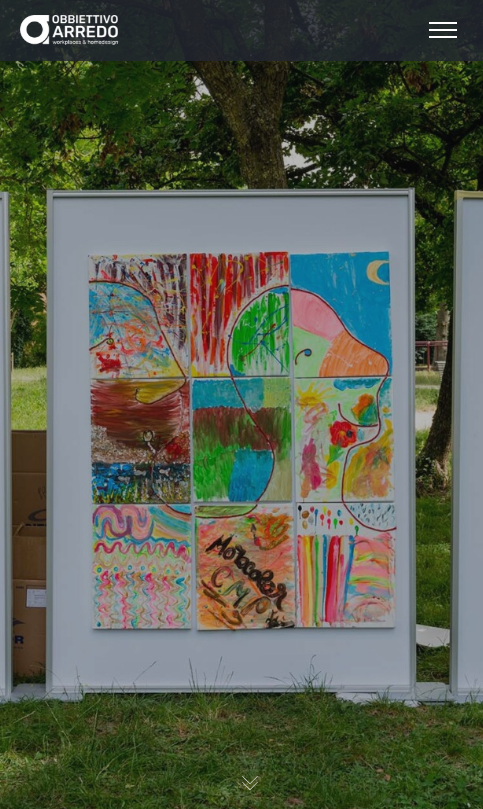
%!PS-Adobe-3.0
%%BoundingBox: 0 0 483 809
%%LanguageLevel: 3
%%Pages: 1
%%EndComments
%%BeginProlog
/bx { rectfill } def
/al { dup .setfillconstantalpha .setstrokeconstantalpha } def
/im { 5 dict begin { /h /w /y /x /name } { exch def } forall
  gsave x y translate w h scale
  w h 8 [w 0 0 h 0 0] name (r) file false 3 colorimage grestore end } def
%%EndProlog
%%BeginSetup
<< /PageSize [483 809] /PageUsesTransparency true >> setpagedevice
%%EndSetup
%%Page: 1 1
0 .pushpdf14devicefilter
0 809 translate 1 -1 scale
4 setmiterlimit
1 setgray
0 0 483 809 bx
(image0.raw) 0 0 483 809 im
(image1.raw) 242 776 16 14 im
0.8 al
0.133 0.149 0.192 setrgbcolor
0 0 483 61 bx
1 al
(image2.raw) 20 15 98 30 im
1 setgray
429 29 28 2 bx
429 22 28 2 bx
429 36 28 2 bx
.poppdf14devicefilter showpage
%%EOF
